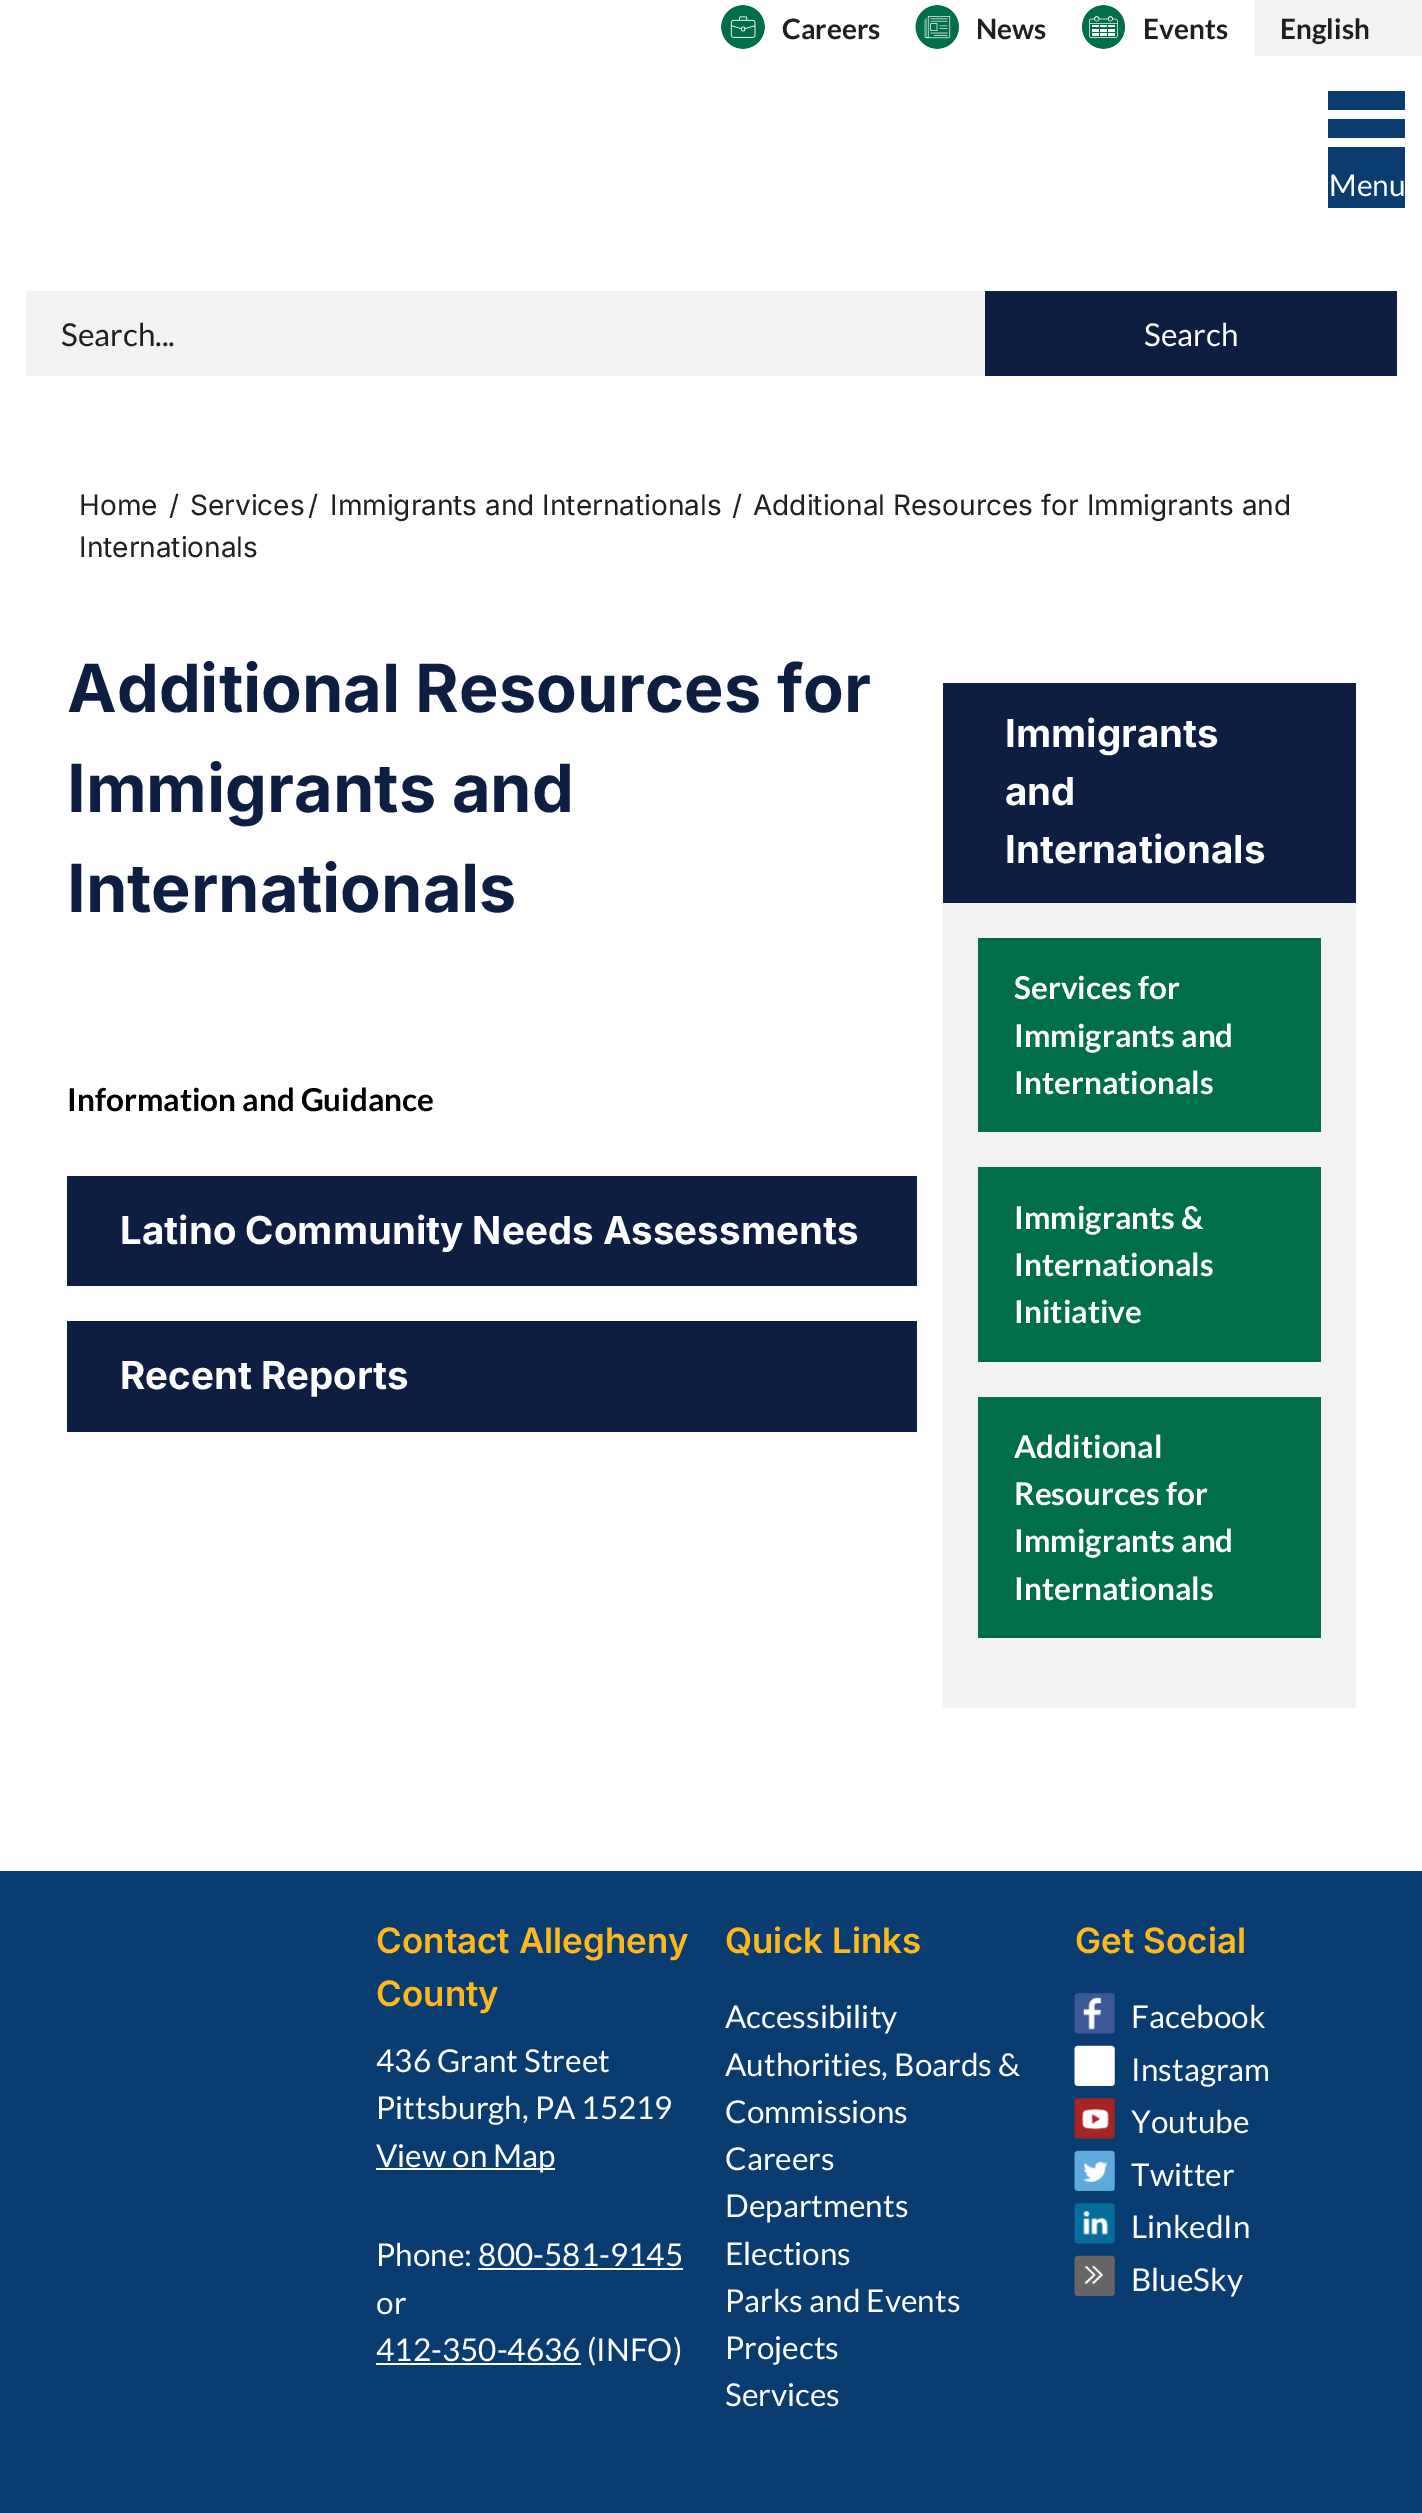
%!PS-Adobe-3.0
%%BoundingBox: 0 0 1422 2513
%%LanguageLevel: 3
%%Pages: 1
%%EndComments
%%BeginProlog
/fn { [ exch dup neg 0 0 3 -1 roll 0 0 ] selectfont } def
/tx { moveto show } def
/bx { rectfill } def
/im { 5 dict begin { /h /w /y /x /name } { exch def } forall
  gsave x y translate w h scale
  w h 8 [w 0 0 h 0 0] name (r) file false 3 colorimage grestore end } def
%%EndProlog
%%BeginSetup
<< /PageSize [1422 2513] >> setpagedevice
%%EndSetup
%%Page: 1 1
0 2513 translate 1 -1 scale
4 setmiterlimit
1 setgray
0 0 1422 2513 bx
(image0.raw) 721 5 44 44 im
/Lato-Bold 28 fn
0.122 setgray
(Careers) 782 39 tx
(image1.raw) 915 5 44 44 im
(News) 976 39 tx
(image2.raw) 1082 5 43 44 im
(Events) 1143 39 tx
0.949 setgray
1255 0 167 56 bx
0.122 setgray
(English) 1280 39 tx
0.035 0.235 0.443 setrgbcolor
1328 91 77 117 bx
1 setgray
1328 110 77 9 bx
1328 138 77 9 bx
/Lato-Regular 30 fn
(Menu) 1329 196 tx
0.949 setgray
26 291 959 85 bx
/Lato-Regular 31.5 fn
0.122 setgray
(Search...) 61 346 tx
0.055 0.118 0.259 setrgbcolor
985 291 412 85 bx
1 setgray
(Search) 1144 346 tx
/Inter-Regular 28 fn
0.122 setgray
(Home) 79 515 tx
(/) 169 515 tx
(Services) 190 515 tx
(/) 308 515 tx
(Immigrants and Internationals) 330 515 tx
(/) 732 515 tx
(Additional Resources for Immigrants and) 753 515 tx
(Internationals) 79 557 tx
/Inter-Bold 66.5 fn
0.055 0.118 0.259 setrgbcolor
(Additional Resources for) 67 712 tx
(Immigrants and) 67 812 tx
(Internationals) 67 912 tx
/Lato-Bold 31.5 fn
0 setgray
(Information and Guidance) 67 1111 tx
0.055 0.118 0.259 setrgbcolor
67 1176 850 110 bx
/Inter-Bold 38.5 fn
1 setgray
(Latino Community Needs Assessments) 120 1244 tx
0.055 0.118 0.259 setrgbcolor
67 1321 850 111 bx
1 setgray
(Recent Reports) 120 1389 tx
0.949 setgray
943 903 413 805 bx
0.055 0.118 0.259 setrgbcolor
943 683 413 220 bx
1 setgray
(Immigrants) 1005 747 tx
(and) 1005 805 tx
(Internationals) 1005 863 tx
0 0.431 0.275 setrgbcolor
978 938 343 194 bx
/Lato-Bold 31.5 fn
1 setgray
(Services for) 1014 999 tx
(Immigrants and) 1014 1047 tx
(Internationals) 1014 1094 tx
0 0.431 0.275 setrgbcolor
978 1167 343 195 bx
1 setgray
(Immigrants &) 1014 1229 tx
(Internationals) 1014 1276 tx
(Initiative) 1014 1323 tx
0 0.431 0.275 setrgbcolor
978 1397 343 241 bx
1 setgray
(Additional) 1014 1458 tx
(Resources for) 1014 1505 tx
(Immigrants and) 1014 1552 tx
(Internationals) 1014 1600 tx
0.035 0.235 0.443 setrgbcolor
0 1871 1422 642 bx
/Inter-SemiBold 35 fn
1 0.722 0.11 setrgbcolor
(Contact Allegheny) 376 1953 tx
(County) 376 2006 tx
/Lato-Regular 31.5 fn
1 setgray
(436 Grant Street) 376 2072 tx
(Pittsburgh, PA 15219) 376 2119 tx
376 2168 179 2 bx
(View on Map) 376 2167 tx
(Phone: 800-581-9145) 376 2266 tx
478 2268 205 2 bx
(or) 376 2314 tx
376 2363 205 2 bx
(412-350-4636 \(INFO\)) 376 2361 tx
/Inter-SemiBold 35 fn
1 0.722 0.11 setrgbcolor
(Quick Links) 725 1953 tx
/Lato-Regular 31.5 fn
1 setgray
(Accessibility) 725 2028 tx
(Authorities, Boards &) 725 2076 tx
(Commissions) 725 2123 tx
(Careers) 725 2170 tx
(Departments) 725 2217 tx
(Elections) 725 2265 tx
(Parks and Events) 725 2312 tx
(Projects) 725 2359 tx
(Services) 725 2406 tx
/Inter-SemiBold 35 fn
1 0.722 0.11 setrgbcolor
(Get Social) 1075 1953 tx
(image3.raw) 1074 1993 41 41 im
/Lato-Regular 31.5 fn
1 setgray
(Facebook) 1131 2028 tx
(image4.raw) 1074 2045 41 41 im
(Instagram) 1131 2081 tx
(image5.raw) 1074 2098 41 41 im
(Youtube) 1131 2133 tx
(image6.raw) 1074 2150 41 41 im
(Twitter) 1131 2186 tx
(image7.raw) 1074 2203 41 41 im
(LinkedIn) 1131 2238 tx
(image8.raw) 1074 2255 41 41 im
(BlueSky) 1131 2291 tx
showpage
%%EOF
